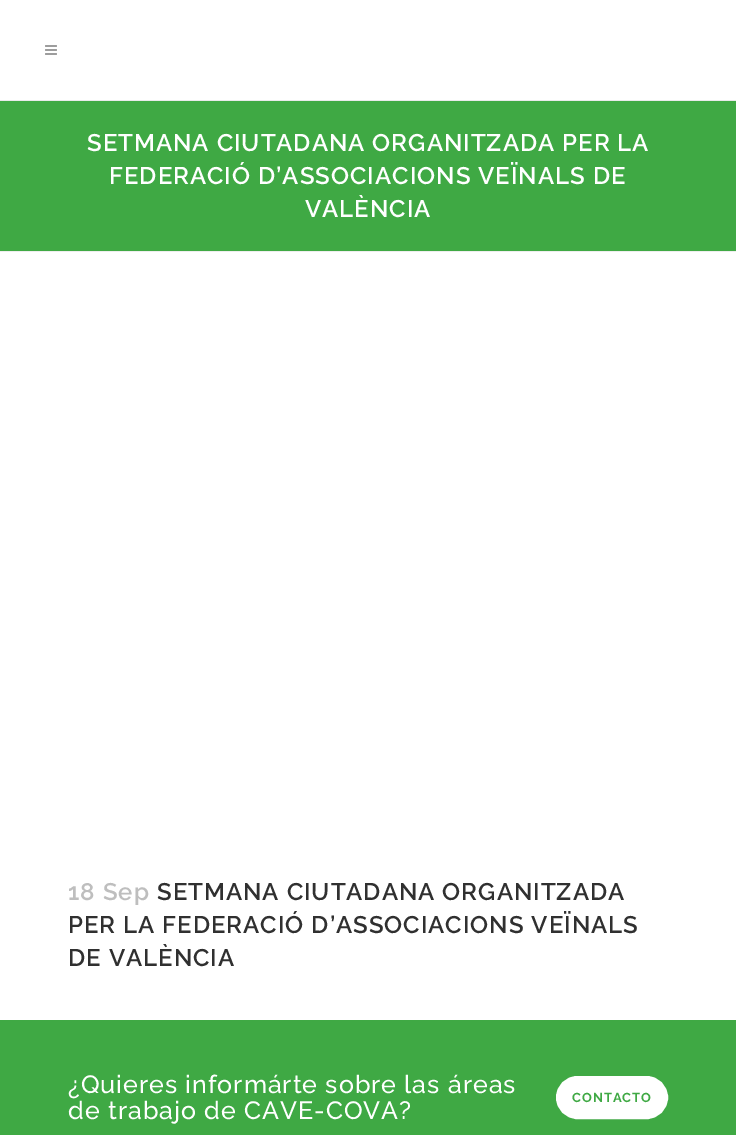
%!PS-Adobe-3.0
%%BoundingBox: 0 0 736 1135
%%LanguageLevel: 3
%%Pages: 1
%%EndComments
%%BeginProlog
/m { moveto } bind def
/f { fill } bind def
/S { stroke } bind def
/q { gsave } bind def
/Q { grestore } bind def
/w { setlinewidth } bind def
/fn { [ exch dup neg 0 0 3 -1 roll 0 0 ] selectfont } def
/bx { rectfill } def
/rr { 5 dict begin { /r /h /w /y /x } { exch def } forall
  x r add y moveto x w add y 2 copy h add r arct x w add y h add x 1 index r arct
  x y h add x y r arct x y 2 copy exch w add exch r arct closepath end } def
/im { 5 dict begin { /h /w /y /x /name } { exch def } forall
  gsave x y translate w h scale
  w h 8 [w 0 0 h 0 0] name (r) file false 3 colorimage grestore end } def
%%EndProlog
%%BeginSetup
<< /PageSize [736 1135] >> setpagedevice
%%EndSetup
%%Page: 1 1
0 1135 translate 1 -1 scale
4 setmiterlimit
1 setgray
0 0 736 1135 bx
0.918 setgray
0 100 736 1 bx
(image0.raw) 45 45 12 10 im
0.247 0.663 0.267 setrgbcolor
0 101 736 150 bx
0.933 setgray
0 251 736 1 bx
/Raleway-SemiBold 24 fn
1 setgray
87 151 m 1 0 (SETMANA CIUTADANA ORGANITZADA PER LA) ashow
109 184 m 1 0 (FEDERACIÓ D’ASSOCIACIONS VEÏNALS DE) ashow
305 217 m 1 0 (VALÈNCIA) ashow
0.745 setgray
68 900 m 1 0 (18 Sep) ashow
0.188 setgray
157 900 m 1 0 (SETMANA CIUTADANA ORGANITZADA) ashow
68 933 m 1 0 (PER LA FEDERACIÓ D’ASSOCIACIONS VEÏNALS) ashow
68 966 m 1 0 (DE VALÈNCIA) ashow
0.247 0.663 0.267 setrgbcolor
0 1020 736 115 bx
/Raleway-Medium 25 fn
1 setgray
68 1093 m 1 0 (¿Quieres informárte sobre las áreas) ashow
68 1119 m 1 0 (de trabajo de CAVE-COVA?) ashow
557 1077 110 41 20.5 rr q f Q
2 w
S
/Raleway-Bold 13 fn
0.247 0.663 0.267 setrgbcolor
572 1102 m 1 0 (CONTACTO) ashow
showpage
%%EOF
